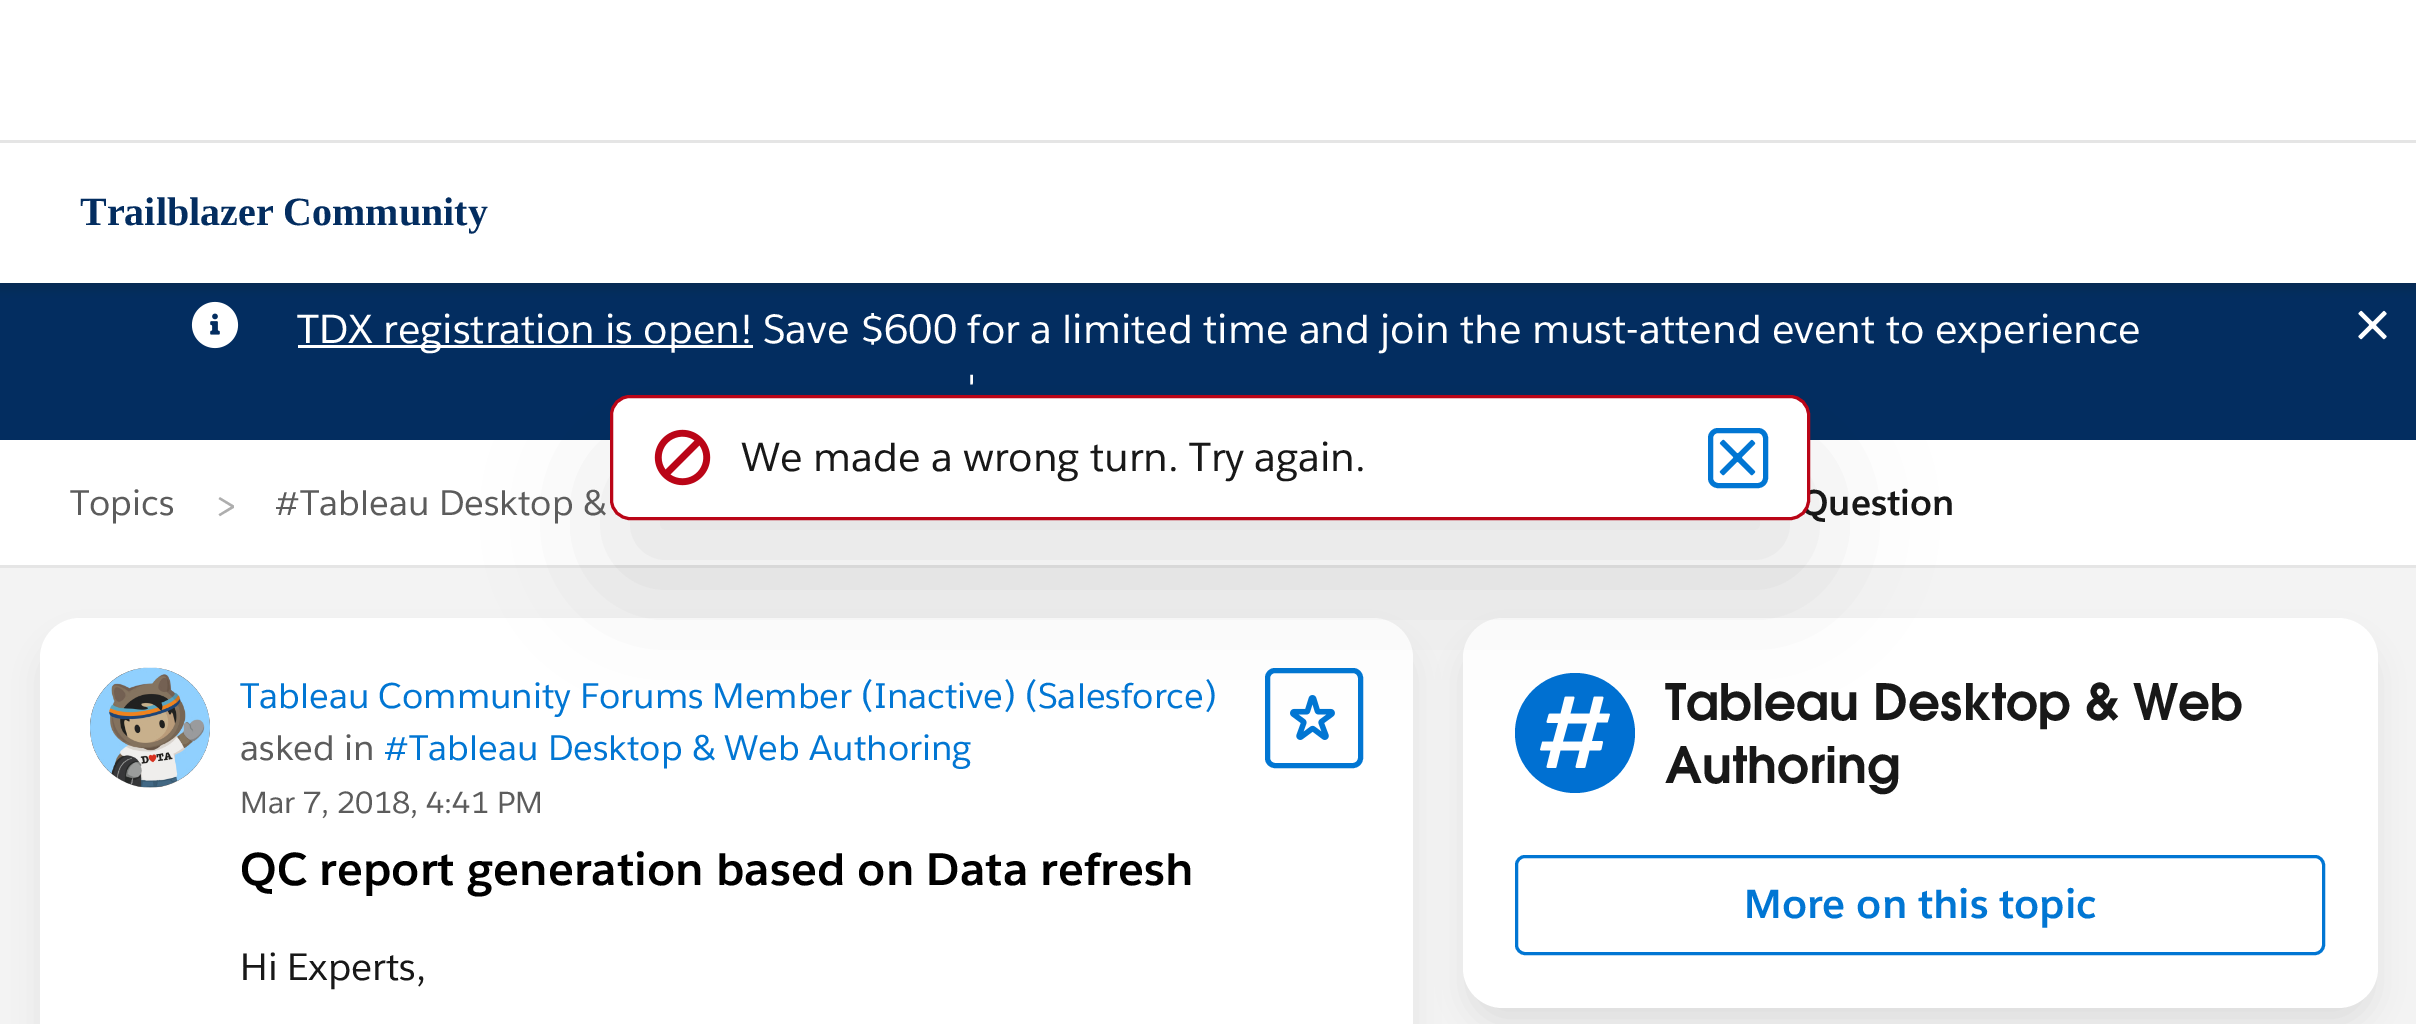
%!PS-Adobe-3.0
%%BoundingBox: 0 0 2416 1024
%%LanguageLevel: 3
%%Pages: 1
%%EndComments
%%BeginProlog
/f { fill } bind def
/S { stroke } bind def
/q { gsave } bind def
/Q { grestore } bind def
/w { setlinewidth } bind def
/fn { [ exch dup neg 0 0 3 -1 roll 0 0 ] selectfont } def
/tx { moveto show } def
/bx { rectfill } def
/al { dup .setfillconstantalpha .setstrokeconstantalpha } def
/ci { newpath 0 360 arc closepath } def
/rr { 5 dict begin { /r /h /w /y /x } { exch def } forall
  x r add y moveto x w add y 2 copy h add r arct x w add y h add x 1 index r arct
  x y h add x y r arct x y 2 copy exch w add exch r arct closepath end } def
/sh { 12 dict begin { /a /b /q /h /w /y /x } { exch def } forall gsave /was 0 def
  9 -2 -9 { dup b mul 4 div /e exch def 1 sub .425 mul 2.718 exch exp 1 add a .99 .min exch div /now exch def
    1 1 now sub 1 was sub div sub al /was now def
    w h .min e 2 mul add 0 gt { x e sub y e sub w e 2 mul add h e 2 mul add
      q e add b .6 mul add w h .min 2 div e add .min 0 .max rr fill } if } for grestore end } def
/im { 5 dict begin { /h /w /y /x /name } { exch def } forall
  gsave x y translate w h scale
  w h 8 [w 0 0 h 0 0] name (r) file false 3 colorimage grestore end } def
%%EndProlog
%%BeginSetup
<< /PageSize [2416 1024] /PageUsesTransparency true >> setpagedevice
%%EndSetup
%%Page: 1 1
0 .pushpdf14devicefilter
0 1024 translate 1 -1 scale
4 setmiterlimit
0.953 setgray
0 0 2416 1024 bx
0.012 0.176 0.376 setrgbcolor
0 283 2416 157 bx
(image0.raw) 191 301 48 48 im
0.094 setgray
-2 143 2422 147 0 5 0.16 sh
0 140 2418 143 0 2.5 0.08 sh
1 setgray
0 0 2416 140 bx
298 345 455 3 bx
0 440 2416 125 bx
0.898 setgray
0 565 2416 3 bx
0.094 setgray
45 643 1363 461 35 15 0.09 sh
1 setgray
40 618 1373 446 40 rr f
0.004 0.463 0.827 setrgbcolor
5 w
1267.5 670.5 93 95 7.5 rr S
(image5.raw) 1290 695 45 45 im
0.094 setgray
1468 643 905 380 35 15 0.09 sh
1 setgray
1463 618 915 390 40 rr f
0 0.439 0.824 setrgbcolor
1575 733 60 ci f
(image6.raw) 1540 696 70 72 im
0.094 setgray
615 460 1190 115 15 60 0.12 sh
1 setgray
0 143 2416 140 bx
0.898 setgray
0 140 2416 3 bx
/LiberationSerif-Bold 40 fn
0.012 0.176 0.376 setrgbcolor
(Trailblazer Community) 80 225 tx
/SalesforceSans-Regular 40 fn
1 setgray
(TDX registration is open! Save $600 for a limited time and join the must-attend event to experience) 297 343 tx
(') 967 403 tx
(image1.raw) 2358 310 29 30 im
/SalesforceSans-Bold 35 fn
0.094 setgray
(Question) 1800 515 tx
1 setgray
611.5 396.5 1197 122 18.5 rr q f Q
0.729 0.02 0.09 setrgbcolor
3 w
S
(image2.raw) 654 429 57 57 im
/SalesforceSans-Regular 40 fn
0.094 setgray
(We made a wrong turn. Try again.) 741 471 tx
0.004 0.463 0.827 setrgbcolor
5 w
1710.5 430.5 55 55 7.5 rr S
(image3.raw) 1719 439 37 37 im
/SalesforceSans-Regular 35 fn
0.361 setgray
(Topics) 70 515 tx
/SalesforceSans-Regular 40 fn
0.682 setgray
(>) 214 518 tx
/SalesforceSans-Regular 35 fn
0.361 setgray
(#Tableau Desktop &) 274 515 tx
0.898 setgray
150 728 60 ci f
(image4.raw) 90 667 120 121 im
0.004 0.463 0.827 setrgbcolor
(Tableau Community Forums Member \(Inactive\) \(Salesforce\)) 240 708 tx
0.361 setgray
(asked in) 240 760 tx
0.004 0.463 0.827 setrgbcolor
(#Tableau Desktop & Web Authoring) 383 760 tx
/SalesforceSans-Regular 30 fn
0.361 setgray
(Mar 7, 2018, 4:41 PM) 240 813 tx
/SalesforceSans-Bold 45 fn
0 setgray
(QC report generation based on Data refresh) 240 885 tx
/SalesforceSans-Regular 37.5 fn
0.094 setgray
(Hi Experts,) 240 980 tx
/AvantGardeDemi-SemiBold 50 fn
(Tableau Desktop & Web) 1665 720 tx
(Authoring) 1665 783 tx
0.004 0.463 0.827 setrgbcolor
3 w
1516.5 856.5 807 97 8.5 rr S
/SalesforceSans-Bold 40 fn
(More on this topic) 1744 918 tx
.poppdf14devicefilter showpage
%%EOF
